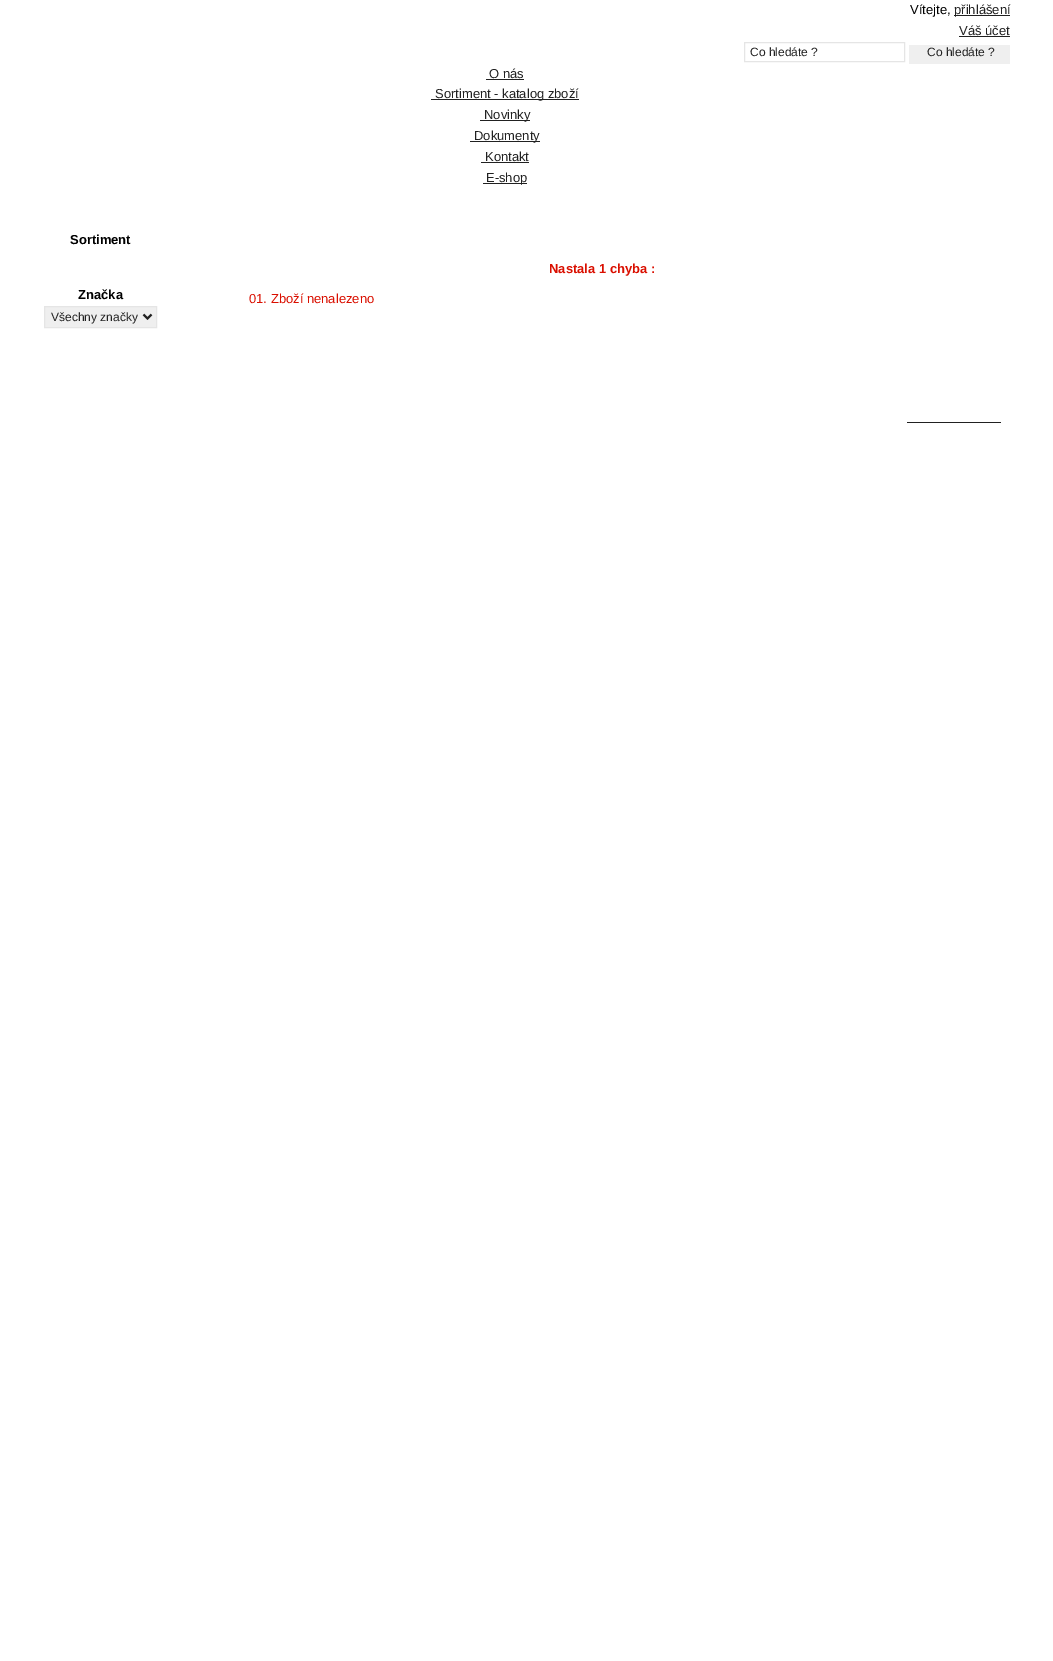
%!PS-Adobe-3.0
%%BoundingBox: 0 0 1053 1661
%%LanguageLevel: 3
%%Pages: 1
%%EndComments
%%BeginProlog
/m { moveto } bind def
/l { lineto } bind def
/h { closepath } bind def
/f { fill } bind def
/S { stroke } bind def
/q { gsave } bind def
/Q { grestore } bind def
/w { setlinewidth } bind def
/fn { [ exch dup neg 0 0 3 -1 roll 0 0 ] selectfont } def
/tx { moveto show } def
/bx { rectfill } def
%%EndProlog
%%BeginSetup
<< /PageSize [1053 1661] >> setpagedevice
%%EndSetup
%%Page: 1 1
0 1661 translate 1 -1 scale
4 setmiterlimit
1 setgray
0 0 1053 1661 bx
/LiberationSans-Regular 13 fn
0 setgray
(Vítejte,) 910 14 tx
0.129 setgray
954 15 56 1 bx
(přihlášení) 954 14 tx
(Váš účet) 959 35 tx
959 36 51 1 bx
0.898 setgray
744.5 42.5 160 19 rectstroke
/LiberationSans-Regular 12 fn
0.129 setgray
(Co hledáte ?) 750 56 tx
0.937 setgray
909 45 101 19 bx
0.129 setgray
(Co hledáte ?) 927 56 tx
/LiberationSans-Regular 13 fn
(O nás) 489 78 tx
486 79 38 1 bx
431 99 148 1 bx
(Sortiment - katalog zboží) 435 98 tx
480 120 50 1 bx
(Novinky) 484 119 tx
470 141 70 1 bx
(Dokumenty) 474 140 tx
(Kontakt) 485 161 tx
481 162 48 1 bx
483 183 44 1 bx
(E-shop) 486 182 tx
/LiberationSans-Bold 13 fn
0 setgray
(Sortiment) 70 244 tx
(Značka) 78 299 tx
0.937 setgray
44.5 306.5 m 156.5 306.5 l 156.5 327.5 l 44.5 327.5 l h q f Q
0.898 setgray
S
0.129 setgray
2 w
143.5 314.5 m 147.5 318.5 l 151.5 314.5 l S
/LiberationSans-Regular 12 fn
(Všechny značky) 51 321 tx
/LiberationSans-Bold 13 fn
0.855 0.059 0 setrgbcolor
(Nastala 1 chyba :) 549 273 tx
/LiberationSans-Regular 13 fn
(01. Zboží nenalezeno) 249 303 tx
0.129 setgray
907 422 94 1 bx
showpage
%%EOF
